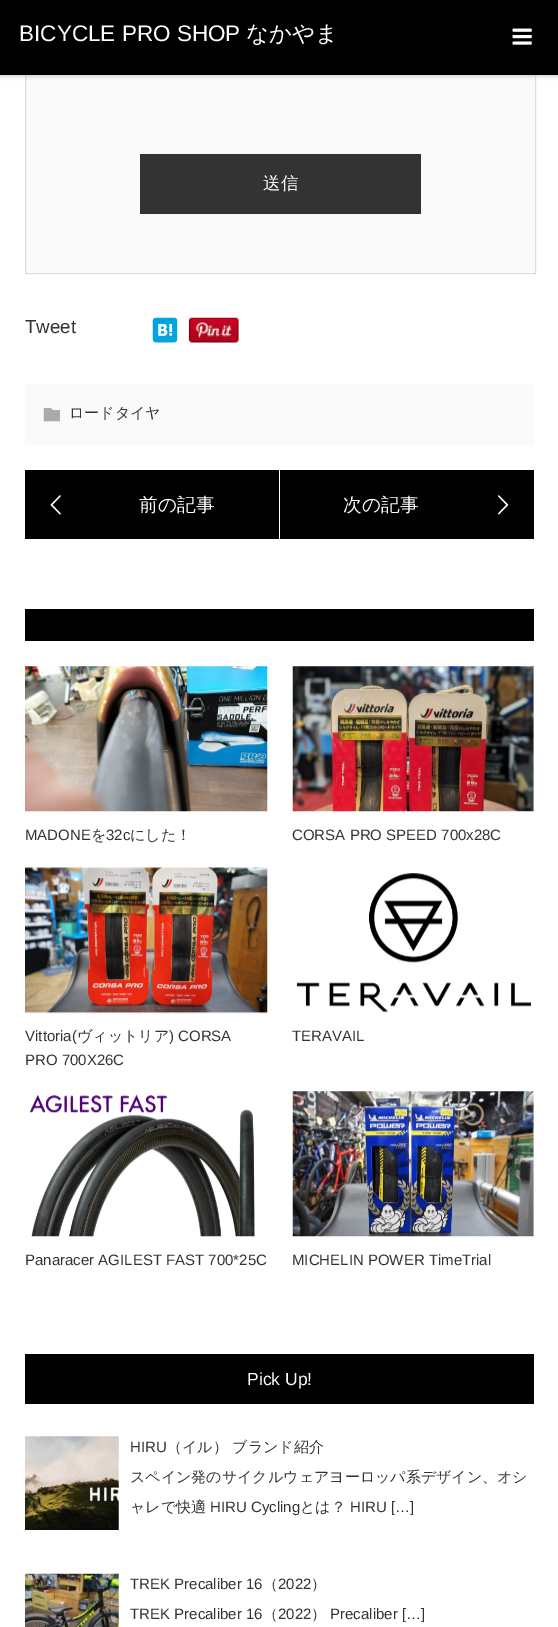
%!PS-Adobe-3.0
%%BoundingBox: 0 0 558 1627
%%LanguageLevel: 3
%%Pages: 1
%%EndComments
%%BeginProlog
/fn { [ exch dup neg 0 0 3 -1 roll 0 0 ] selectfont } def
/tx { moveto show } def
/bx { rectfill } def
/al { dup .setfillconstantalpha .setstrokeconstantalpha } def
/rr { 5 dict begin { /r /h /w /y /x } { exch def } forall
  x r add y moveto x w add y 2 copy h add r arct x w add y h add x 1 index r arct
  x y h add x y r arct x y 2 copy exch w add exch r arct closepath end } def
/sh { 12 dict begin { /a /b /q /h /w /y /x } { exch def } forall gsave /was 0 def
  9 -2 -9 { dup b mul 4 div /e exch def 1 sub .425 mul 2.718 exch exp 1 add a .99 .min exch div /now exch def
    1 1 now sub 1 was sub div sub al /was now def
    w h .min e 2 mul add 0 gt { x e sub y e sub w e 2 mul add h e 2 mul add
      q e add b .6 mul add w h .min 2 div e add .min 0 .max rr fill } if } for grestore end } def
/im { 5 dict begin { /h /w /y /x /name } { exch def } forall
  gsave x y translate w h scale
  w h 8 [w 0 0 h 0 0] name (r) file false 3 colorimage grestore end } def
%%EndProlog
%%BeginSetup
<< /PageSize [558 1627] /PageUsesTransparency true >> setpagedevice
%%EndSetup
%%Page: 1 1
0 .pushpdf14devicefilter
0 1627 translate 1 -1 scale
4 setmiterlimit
1 setgray
0 0 558 1627 bx
0.98 setgray
26 75 509 198 bx
0.867 setgray
25.5 -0.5 510 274 rectstroke
0 setgray
0 1 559 75 0 2.5 0.2 sh
0 0 558 75 bx
/LiberationSans-Regular 22.5 fn
1 setgray
(BICYCLE PRO SHOP) 19 41 tx
/WenQuanYiZenHei-Medium 22.5 fn
(なかやま) 246 41 tx
(image0.raw) 512 28 20 17 im
0.2 setgray
140 154 281 60 bx
/WenQuanYiZenHei-Medium 17.5 fn
1 setgray
(送信) 263 189 tx
/LiberationSans-Regular 18.75 fn
0.2 setgray
(Tweet) 25 333 tx
(image1.raw) 152 317 26 26 im
(image2.raw) 188 317 51 26 im
0.98 setgray
25 384 509 61 bx
(image3.raw) 43 408 17 14 im
/WenQuanYiZenHei-Medium 15 fn
0.2 setgray
(ロードタイヤ) 69 418 tx
0 setgray
25 470 254 69 bx
(image4.raw) 50 495 11 20 im
/WenQuanYiZenHei-Medium 18.75 fn
1 setgray
(前の記事) 139 511 tx
0 setgray
280 470 254 69 bx
1 setgray
(次の記事) 343 511 tx
(image5.raw) 497 495 12 20 im
0 setgray
25 609 509 32 bx
(image6.raw) 25 666 243 146 im
/LiberationSans-Regular 15 fn
0.2 setgray
(MADONE) 25 840 tx
/WenQuanYiZenHei-Medium 15 fn
(を) 91 840 tx
/LiberationSans-Regular 15 fn
(32c) 106 840 tx
/WenQuanYiZenHei-Medium 15 fn
(にした！) 130 840 tx
(image7.raw) 292 666 242 146 im
/LiberationSans-Regular 15 fn
(CORSA PRO SPEED 700x28C) 292 840 tx
(image8.raw) 25 867 243 147 im
(Vittoria\() 25 1041 tx
/WenQuanYiZenHei-Medium 15 fn
(ヴィットリア) 77 1041 tx
/LiberationSans-Regular 15 fn
(\) CORSA) 169 1041 tx
(PRO 700X26C) 25 1065 tx
(image9.raw) 296 873 236 140 im
(TERAVAIL) 292 1041 tx
(image10.raw) 30 1094 225 143 im
(Panaracer AGILEST FAST 700*25C) 25 1265 tx
(image11.raw) 292 1091 242 146 im
(MICHELIN POWER TimeTrial) 292 1265 tx
0 setgray
25 1354 509 50 bx
/LiberationSans-Regular 17.5 fn
1 setgray
(Pick Up!) 247 1385 tx
(image12.raw) 25 1436 94 94 im
/LiberationSans-Regular 15 fn
0.2 setgray
(HIRU) 130 1452 tx
/WenQuanYiZenHei-Medium 15 fn
(（イル） ブランド紹介) 167 1452 tx
(スペイン発のサイクルウェアヨーロッパ系デザイン、オシ) 130 1482 tx
(ャレで快適) 130 1512 tx
/LiberationSans-Regular 15 fn
(HIRU Cycling) 210 1512 tx
/WenQuanYiZenHei-Medium 15 fn
(とは？) 300 1512 tx
/LiberationSans-Regular 15 fn
(HIRU […]) 350 1512 tx
(image13.raw) 25 1573 94 54 im
(TREK Precaliber 16) 130 1589 tx
/WenQuanYiZenHei-Medium 15 fn
(（) 263 1589 tx
/LiberationSans-Regular 15 fn
(2022) 278 1589 tx
/WenQuanYiZenHei-Medium 15 fn
(）) 311 1589 tx
/LiberationSans-Regular 15 fn
(TREK Precaliber 16) 130 1619 tx
/WenQuanYiZenHei-Medium 15 fn
(（) 263 1619 tx
/LiberationSans-Regular 15 fn
(2022) 278 1619 tx
/WenQuanYiZenHei-Medium 15 fn
(）) 311 1619 tx
/LiberationSans-Regular 15 fn
(Precaliber […]) 330 1619 tx
.poppdf14devicefilter showpage
%%EOF
